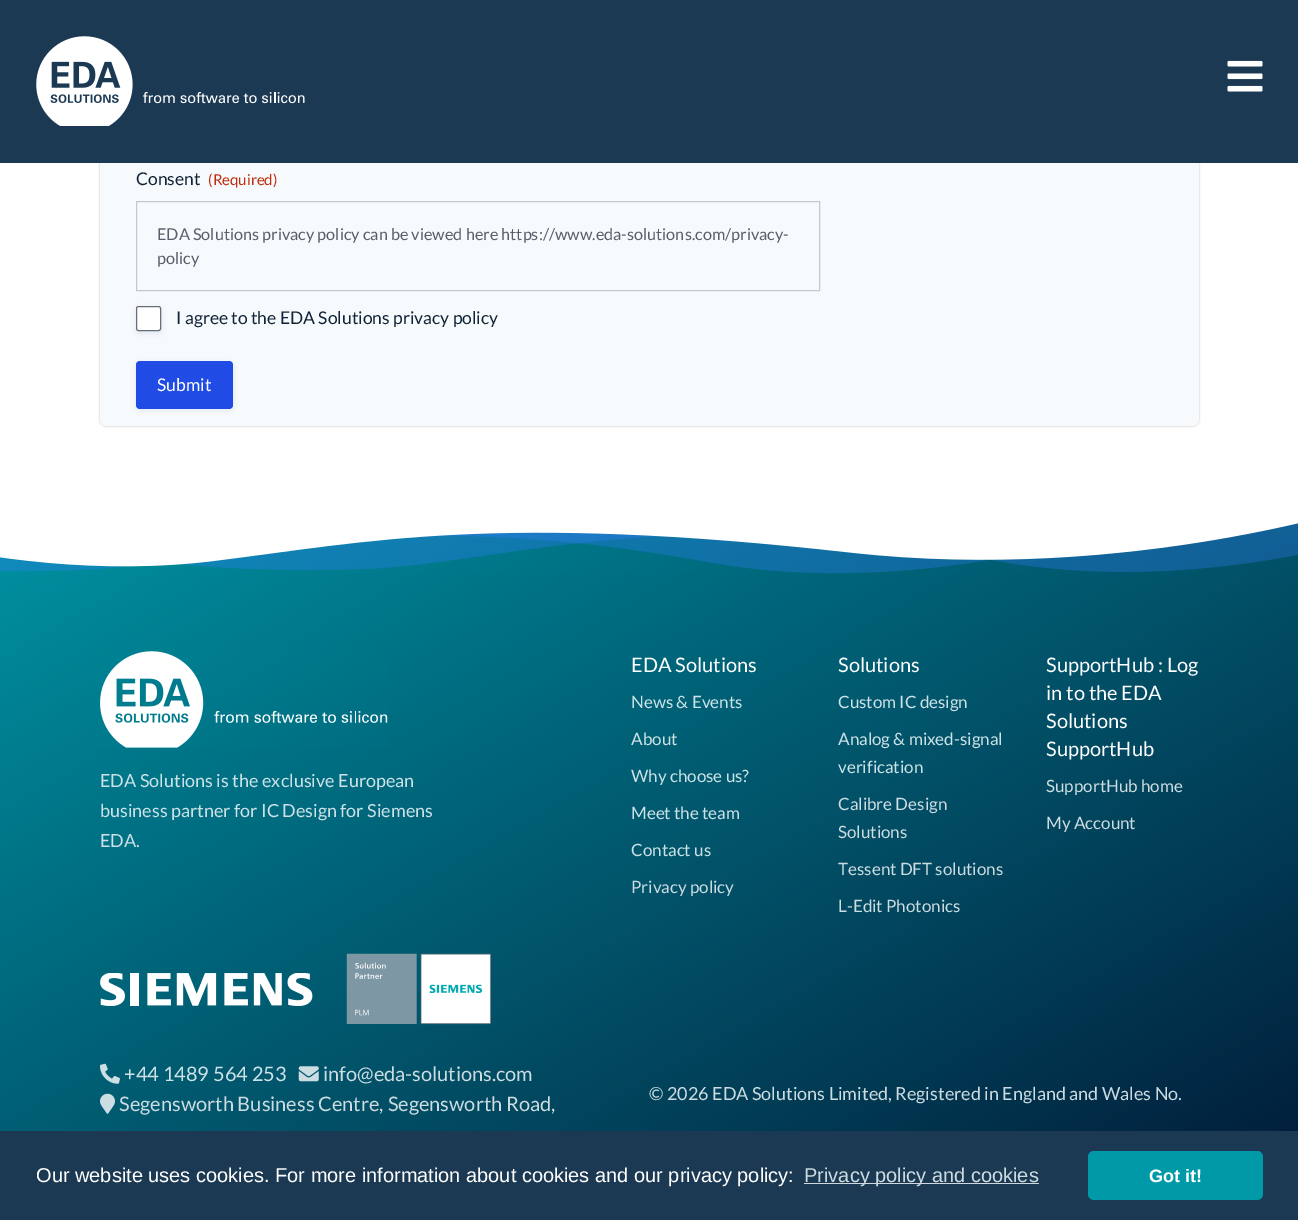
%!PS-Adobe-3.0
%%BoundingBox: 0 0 1298 1220
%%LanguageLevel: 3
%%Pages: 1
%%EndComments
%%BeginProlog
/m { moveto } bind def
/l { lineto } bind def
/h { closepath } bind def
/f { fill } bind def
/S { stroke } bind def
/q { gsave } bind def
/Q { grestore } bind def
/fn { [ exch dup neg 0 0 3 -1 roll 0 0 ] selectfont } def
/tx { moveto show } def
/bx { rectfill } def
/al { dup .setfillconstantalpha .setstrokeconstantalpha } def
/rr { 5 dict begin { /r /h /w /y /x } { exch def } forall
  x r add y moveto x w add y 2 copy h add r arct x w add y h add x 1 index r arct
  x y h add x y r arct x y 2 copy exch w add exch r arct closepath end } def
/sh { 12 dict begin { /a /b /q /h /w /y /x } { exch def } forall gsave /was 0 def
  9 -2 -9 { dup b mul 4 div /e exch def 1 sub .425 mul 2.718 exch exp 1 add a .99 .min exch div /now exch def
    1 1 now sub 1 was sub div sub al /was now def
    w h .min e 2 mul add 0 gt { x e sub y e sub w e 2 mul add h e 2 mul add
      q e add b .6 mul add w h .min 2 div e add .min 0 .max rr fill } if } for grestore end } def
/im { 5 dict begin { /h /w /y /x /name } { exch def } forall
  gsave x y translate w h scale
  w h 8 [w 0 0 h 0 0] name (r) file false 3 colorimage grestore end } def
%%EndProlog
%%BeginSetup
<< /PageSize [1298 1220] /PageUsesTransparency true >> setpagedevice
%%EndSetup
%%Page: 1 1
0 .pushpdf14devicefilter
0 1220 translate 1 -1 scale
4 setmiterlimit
1 setgray
0 0 1298 1220 bx
0 setgray
100 -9 1099 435 6 1 0.27 sh
0.965 0.98 0.992 setrgbcolor
100 -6 1099 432 6 rr f
0.106 0.224 0.325 setrgbcolor
0 0 1298 163 bx
(image0.raw) 36 36 269 90 im
(image1.raw) 1227 60 36 32 im
/Lato-Regular 17.5 fn
0.067 0.137 0.216 setrgbcolor
(Consent) 136 185 tx
/Lato-Regular 15 fn
0.753 0.169 0.039 setrgbcolor
(\(Required\)) 208 185 tx
0.769 0.788 0.808 setrgbcolor
136.5 201.5 683 89 rectstroke
/Lato-Regular 16.25 fn
0.345 0.369 0.416 setrgbcolor
(EDA Solutions privacy policy can be viewed here https://www.eda-solutions.com/privacy-) 157 240 tx
(policy) 157 264 tx
0.071 0.098 0.38 setrgbcolor
136 308 25 25 2.5 2.5 0.08 sh
1 setgray
136.5 306.5 24 24 2 rr q f Q
0.408 0.431 0.467 setrgbcolor
S
/Lato-Regular 17.5 fn
0.067 0.137 0.216 setrgbcolor
(I agree to the EDA Solutions privacy policy) 176 324 tx
0.071 0.098 0.38 setrgbcolor
136 363 97 47 4 2.5 0.08 sh
0.125 0.298 0.898 setrgbcolor
136 361 97 48 4 rr f
1 setgray
(Submit) 157 391 tx
q 0 523 m 1298 523 l 1298 1131 l 0 1131 l h clip newpath
<< /ShadingType 2 /ColorSpace /DeviceRGB /Coords [317 252 982 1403] /Extend [true true] /Function << /FunctionType 2 /Domain [0 1] /C0 [0 0.6 0.659] /C1 [0.004 0.098 0.212] /N 1 >> >> shfill Q
(image2.raw) 0 471 1298 103 im
(image3.raw) 100 651 288 97 im
/Lato-Regular 18 fn
0.8 0.886 0.902 setrgbcolor
(EDA Solutions is the exclusive European) 100 787 tx
(business partner for IC Design for Siemens) 100 817 tx
(EDA.) 100 847 tx
/Lato-Regular 20 fn
1 setgray
(EDA Solutions) 631 672 tx
/Lato-Regular 17 fn
0.8 0.886 0.902 setrgbcolor
(News & Events) 631 708 tx
(About) 631 745 tx
(Why choose us?) 631 782 tx
(Meet the team) 631 819 tx
(Contact us) 631 856 tx
0.8 0.863 0.882 setrgbcolor
(Privacy policy) 631 893 tx
/Lato-Regular 20 fn
1 setgray
(Solutions) 838 672 tx
/Lato-Regular 17 fn
0.8 0.886 0.902 setrgbcolor
(Custom IC design) 838 708 tx
(Analog & mixed-signal) 838 745 tx
(verification) 838 773 tx
0.8 0.863 0.882 setrgbcolor
(Calibre Design) 838 810 tx
(Solutions) 838 838 tx
(Tessent DFT solutions) 838 875 tx
(L-Edit Photonics) 838 912 tx
/Lato-Regular 20 fn
1 setgray
(SupportHub : Log) 1046 672 tx
(in to the EDA) 1046 700 tx
(Solutions) 1046 728 tx
(SupportHub) 1046 756 tx
/Lato-Regular 17 fn
0.8 0.863 0.882 setrgbcolor
(SupportHub home) 1046 792 tx
(My Account) 1046 829 tx
(image4.raw) 100 973 213 33 im
(image5.raw) 346 953 145 72 im
(image6.raw) 100 1063 20 21 im
/Lato-Regular 20 fn
0.8 0.886 0.902 setrgbcolor
(+44 1489 564 253) 124 1081 tx
(image7.raw) 298 1066 21 16 im
0.8 0.863 0.882 setrgbcolor
(info@eda-solutions.com) 323 1081 tx
(image8.raw) 100 1093 15 21 im
(Segensworth Business Centre, Segensworth Road,) 119 1111 tx
/Lato-Regular 18 fn
(© 2026 EDA Solutions Limited, Registered in England and Wales No.) 649 1100 tx
0.106 0.224 0.325 setrgbcolor
0 1131 1298 89 bx
/LiberationSans-Regular 20 fn
1 setgray
(Our website uses cookies. For more information about cookies and our privacy policy:) 36 1182 tx
0.82 0.843 0.867 setrgbcolor
804 1183 235 1 bx
0.8 0.863 0.882 setrgbcolor
(Privacy policy and cookies) 804 1182 tx
0 0.6 0.659 setrgbcolor
1088 1151 175 49 6 rr f
/LiberationSans-Bold 18 fn
1 setgray
(Got it!) 1149 1182 tx
.poppdf14devicefilter showpage
%%EOF
